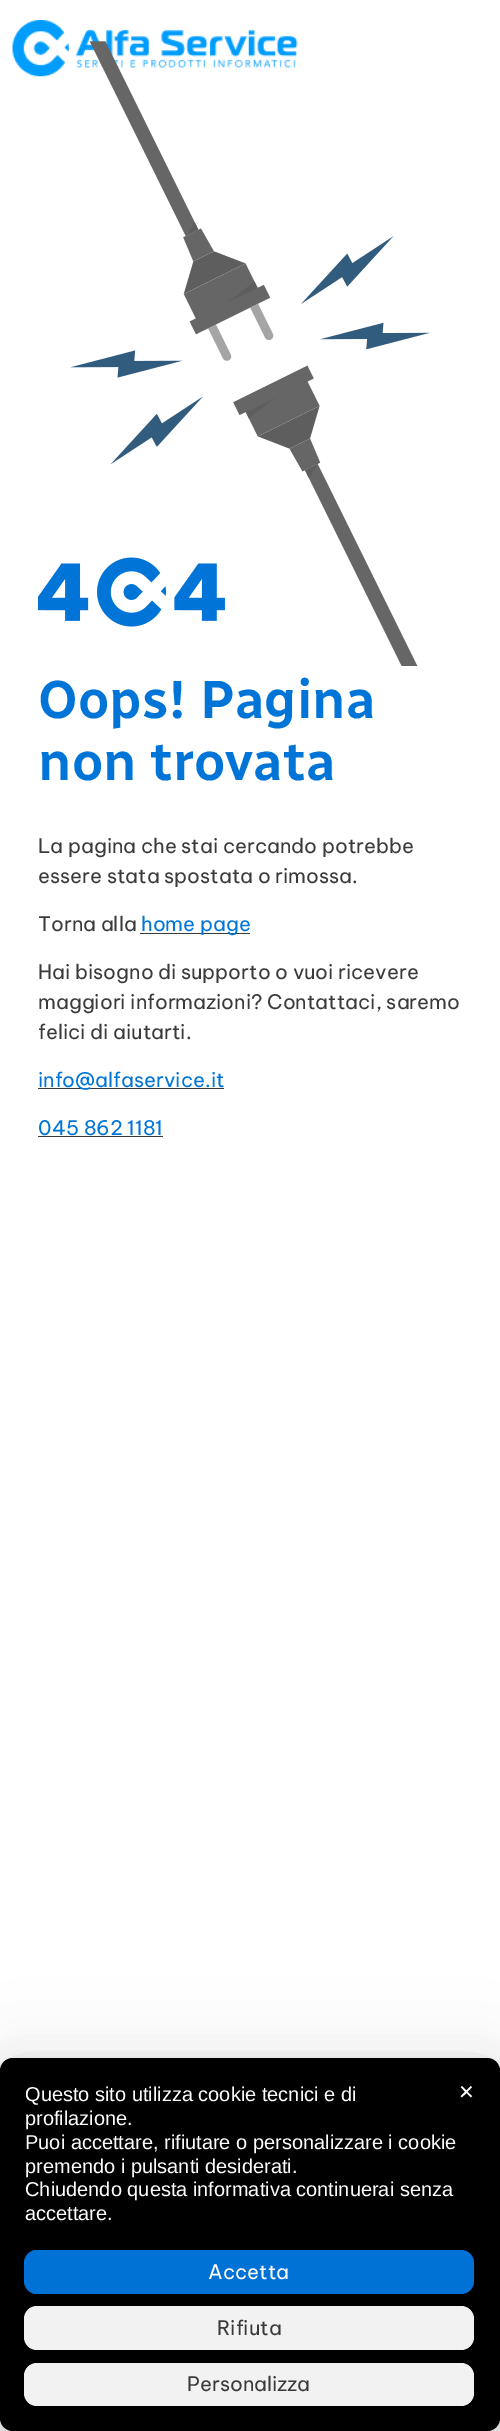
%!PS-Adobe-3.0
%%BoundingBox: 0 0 500 2431
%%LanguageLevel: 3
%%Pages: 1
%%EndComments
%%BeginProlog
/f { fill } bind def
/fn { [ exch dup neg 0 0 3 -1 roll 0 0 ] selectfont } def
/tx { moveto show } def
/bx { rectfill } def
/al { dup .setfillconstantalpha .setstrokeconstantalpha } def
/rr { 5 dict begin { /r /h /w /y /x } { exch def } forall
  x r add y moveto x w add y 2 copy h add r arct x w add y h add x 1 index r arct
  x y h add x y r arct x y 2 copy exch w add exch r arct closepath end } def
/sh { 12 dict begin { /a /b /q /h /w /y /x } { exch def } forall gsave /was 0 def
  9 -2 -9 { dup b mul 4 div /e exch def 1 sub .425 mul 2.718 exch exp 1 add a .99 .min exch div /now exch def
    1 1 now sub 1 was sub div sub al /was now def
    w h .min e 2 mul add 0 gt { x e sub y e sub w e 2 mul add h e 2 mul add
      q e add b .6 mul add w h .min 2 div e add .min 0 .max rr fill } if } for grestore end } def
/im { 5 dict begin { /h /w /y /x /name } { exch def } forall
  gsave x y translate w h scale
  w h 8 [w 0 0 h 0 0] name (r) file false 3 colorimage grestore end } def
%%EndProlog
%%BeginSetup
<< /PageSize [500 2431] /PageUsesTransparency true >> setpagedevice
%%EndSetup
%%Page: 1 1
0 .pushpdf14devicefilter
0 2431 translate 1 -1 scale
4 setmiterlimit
1 setgray
0 0 500 2431 bx
(image0.raw) 12 20 286 57 im
(image1.raw) 70 41 360 625 im
(image2.raw) 38 557 187 70 im
/RadioCanada-SemiBold 53.75 fn
0 0.455 0.843 setrgbcolor
(Oops! Pagina) 38 718 tx
(non trovata) 38 780 tx
/BeVietnamPro-Regular 20 fn
0.227 setgray
(La pagina che stai cercando potrebbe) 38 853 tx
(essere stata spostata o rimossa.) 38 883 tx
(Torna alla) 38 931 tx
140 933 110 1 bx
0 0.455 0.843 setrgbcolor
(home page) 141 931 tx
0.227 setgray
(Hai bisogno di supporto o vuoi ricevere) 38 979 tx
(maggiori informazioni? Contattaci, saremo) 38 1009 tx
(felici di aiutarti.) 38 1039 tx
38 1088 186 1 bx
0 0.455 0.843 setrgbcolor
(info@alfaservice.it) 38 1087 tx
(045 862 1181) 38 1135 tx
0.227 setgray
38 1136 125 1 bx
0.067 0.067 0.102 setrgbcolor
0 2088 500 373 13 50 0.1 sh
0 2078 500 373 13 35 0.1 sh
0 2068 500 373 13 15 0.1 sh
0 setgray
0 2058 500 373 13 rr f
/LiberationSans-Regular 20 fn
1 setgray
(Questo sito utilizza cookie tecnici e di) 25 2101 tx
(profilazione.) 25 2125 tx
(Puoi accettare, rifiutare o personalizzare i cookie) 25 2149 tx
(premendo i pulsanti desiderati.) 25 2173 tx
(Chiudendo questa informativa continuerai senza) 25 2196 tx
(accettare.) 25 2220 tx
0 0.447 0.839 setrgbcolor
24 2250 450 44 13 rr f
/BeVietnamPro-Regular 20 fn
1 setgray
(Accetta) 208 2279 tx
0.949 setgray
24 2306 450 44 13 rr f
0.227 setgray
(Rifiuta) 217 2335 tx
0.949 setgray
24 2363 450 43 13 rr f
0.227 setgray
(Personalizza) 187 2391 tx
/DejaVuSans-Regular 20 fn
1 setgray
(✕) 458 2099 tx
.poppdf14devicefilter showpage
%%EOF
